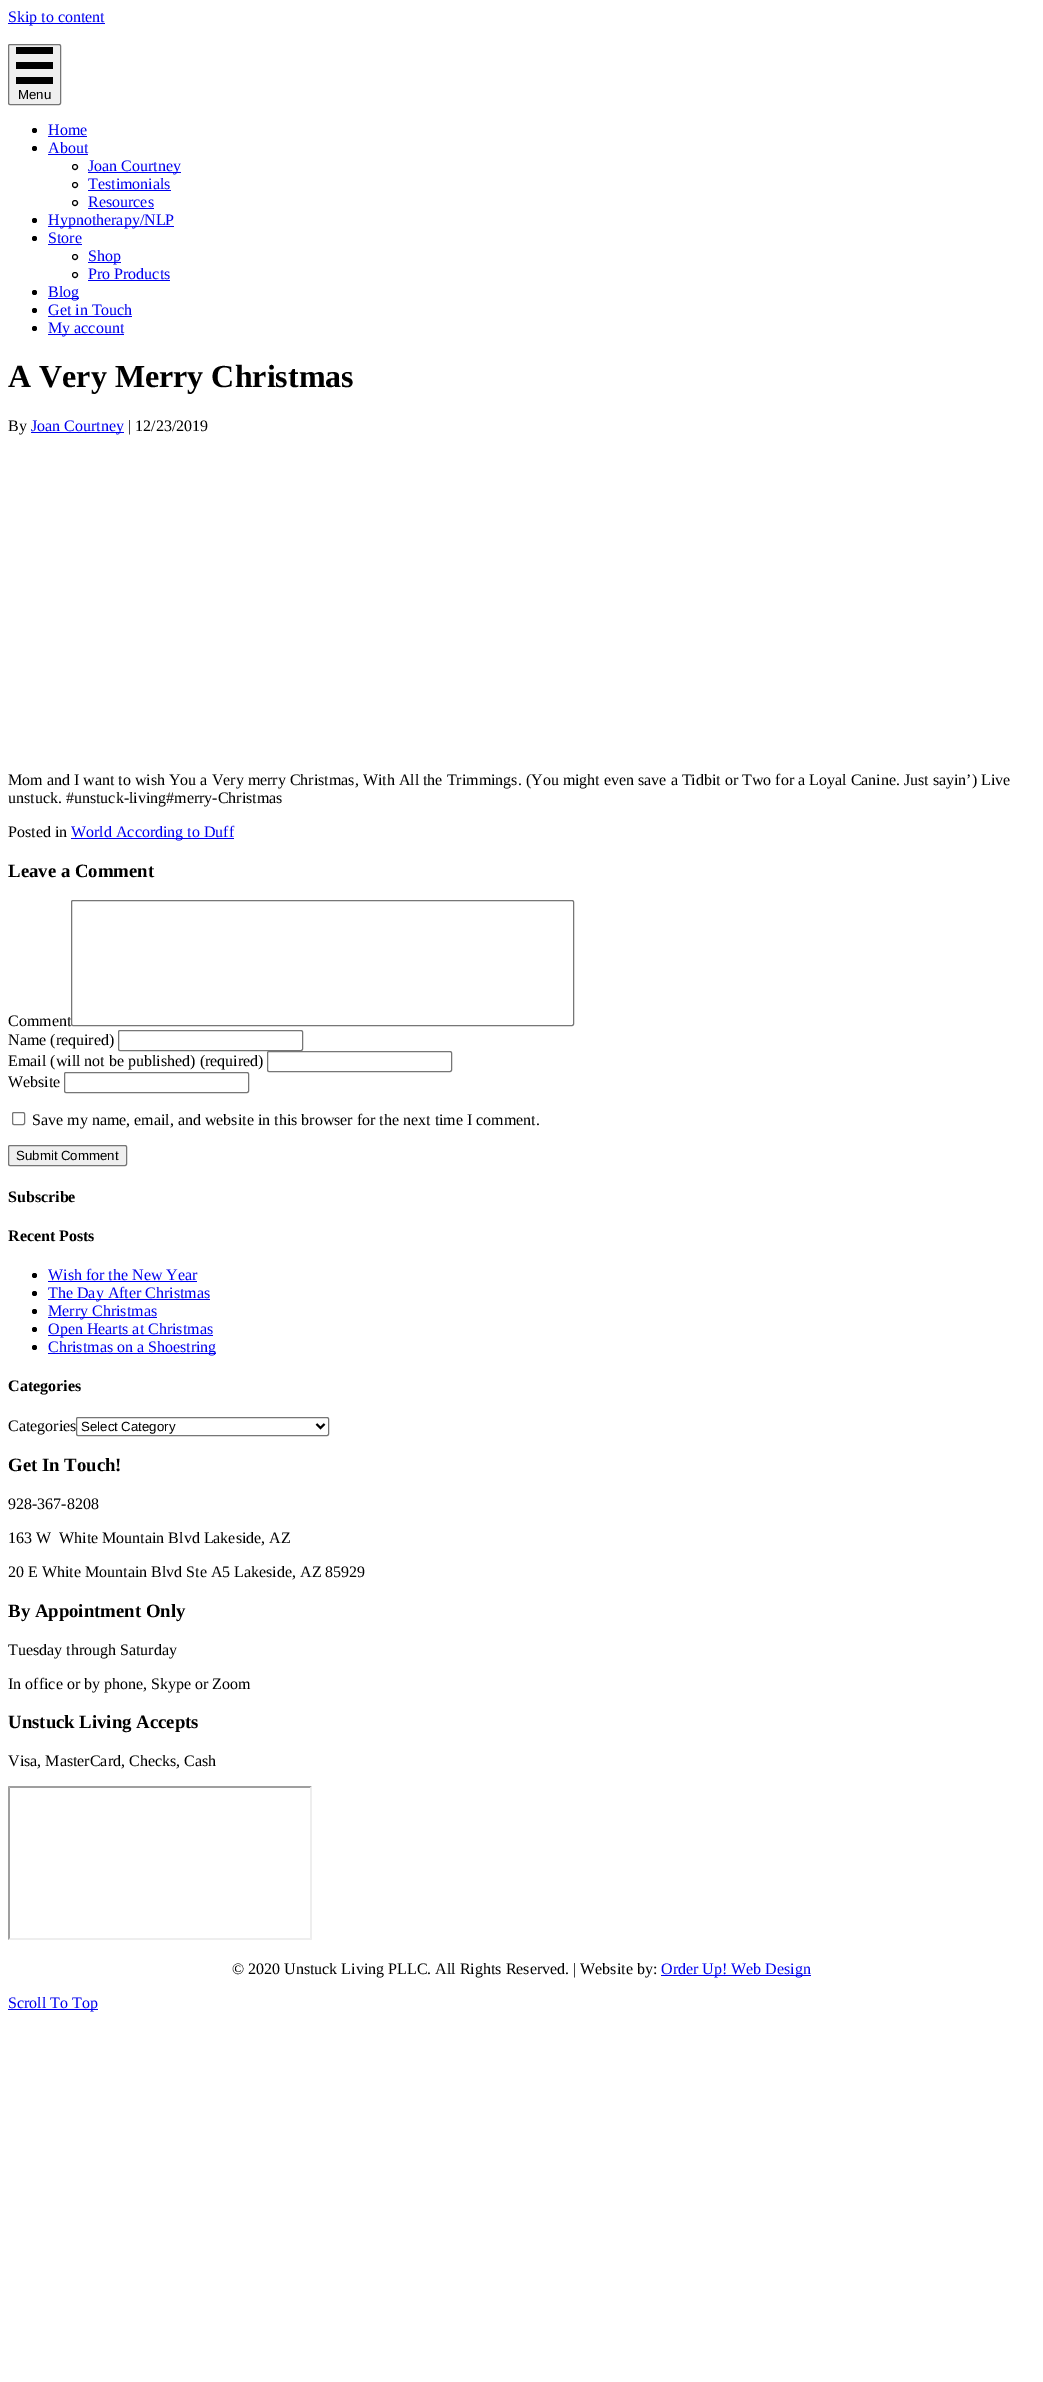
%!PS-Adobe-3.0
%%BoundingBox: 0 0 1043 2382
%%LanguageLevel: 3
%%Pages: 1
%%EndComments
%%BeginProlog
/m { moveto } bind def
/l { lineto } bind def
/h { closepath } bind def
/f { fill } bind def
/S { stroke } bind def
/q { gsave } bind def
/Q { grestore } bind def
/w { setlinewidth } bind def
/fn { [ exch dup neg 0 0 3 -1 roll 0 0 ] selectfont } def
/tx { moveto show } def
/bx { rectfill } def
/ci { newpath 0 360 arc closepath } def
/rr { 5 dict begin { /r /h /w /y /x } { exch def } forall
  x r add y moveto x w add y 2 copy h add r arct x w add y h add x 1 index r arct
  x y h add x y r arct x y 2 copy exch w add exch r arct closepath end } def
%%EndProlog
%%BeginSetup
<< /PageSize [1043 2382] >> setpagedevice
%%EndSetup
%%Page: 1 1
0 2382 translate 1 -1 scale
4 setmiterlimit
1 setgray
0 0 1043 2382 bx
0 0 0.933 setrgbcolor
8 23 97 1 bx
/LiberationSerif-Regular 16 fn
(Skip to content) 8 22 tx
0.937 setgray
8.5 44.5 52 60 1.5 rr q f Q
0.463 setgray
S
0 setgray
16 47 37 7 bx
16 62 37 7 bx
16 77 37 7 bx
/LiberationSans-Regular 13.25 fn
(Menu) 18 99 tx
34.5 130.5 2.5 ci f
/LiberationSerif-Regular 16 fn
0 0 0.933 setrgbcolor
(Home) 48 135 tx
48 136 39 1 bx
0 setgray
34.5 148.5 2.5 ci f
0 0 0.933 setrgbcolor
(About) 48 153 tx
48 154 40 1 bx
0 setgray
75 167 2.5 ci S
0 0 0.933 setrgbcolor
88 172 93 1 bx
(Joan Courtney) 88 171 tx
0 setgray
75 185 2.5 ci S
0 0 0.933 setrgbcolor
(Testimonials) 88 189 tx
88 190 83 1 bx
0 setgray
75 203 2.5 ci S
0 0 0.933 setrgbcolor
(Resources) 88 207 tx
88 208 66 1 bx
0 setgray
34.5 220.5 2.5 ci f
0 0 0.933 setrgbcolor
48 226 126 1 bx
(Hypnotherapy/NLP) 48 225 tx
0 setgray
34.5 238.5 2.5 ci f
0 0 0.933 setrgbcolor
(Store) 48 243 tx
48 244 34 1 bx
0 setgray
75 257 2.5 ci S
0 0 0.933 setrgbcolor
88 262 33 1 bx
(Shop) 88 261 tx
0 setgray
75 275 2.5 ci S
0 0 0.933 setrgbcolor
(Pro Products) 88 279 tx
88 280 82 1 bx
0 setgray
34.5 292.5 2.5 ci f
0 0 0.933 setrgbcolor
48 298 31 1 bx
(Blog) 48 297 tx
0 setgray
34.5 310.5 2.5 ci f
0 0 0.933 setrgbcolor
(Get in Touch) 48 315 tx
48 316 84 1 bx
0 setgray
34.5 328.5 2.5 ci f
0 0 0.933 setrgbcolor
48 334 76 1 bx
(My account) 48 333 tx
/LiberationSerif-Bold 32 fn
0 setgray
(A Very Merry Christmas) 8 387 tx
/LiberationSerif-Regular 16 fn
(By) 8 431 tx
0 0 0.933 setrgbcolor
31 432 93 1 bx
(Joan Courtney) 31 431 tx
0 setgray
(| 12/23/2019) 128 431 tx
(Mom and I want to wish You a Very merry Christmas, With All the Trimmings. \(You might even save a Tidbit or Two for a Loyal Canine. Just sayin’\) Live) 8 785 tx
(unstuck. #unstuck-living#merry-Christmas) 8 803 tx
(Posted in) 8 837 tx
0 0 0.933 setrgbcolor
71 838 163 1 bx
(World According to Duff) 71 837 tx
/LiberationSerif-Bold 18.75 fn
0 setgray
(Leave a Comment) 8 877 tx
/LiberationSerif-Regular 16 fn
(Comment) 8 1026 tx
0.463 setgray
71.5 900.5 502 125 1.5 rr S
0 setgray
(Name \(required\)) 8 1045 tx
0.463 setgray
118.5 1030.5 184 20 1.5 rr S
0 setgray
(Email \(will not be published\) \(required\)) 8 1066 tx
0.463 setgray
267.5 1051.5 184 20 1.5 rr S
0 setgray
(Website) 8 1087 tx
0.463 setgray
64.5 1072.5 184 20 1.5 rr S
12.5 1112.5 12 12 1.5 rr S
0 setgray
(Save my name, email, and website in this browser for the next time I comment.) 32 1125 tx
0.937 setgray
8.5 1145.5 118 20 1.5 rr q f Q
0.463 setgray
S
/LiberationSans-Regular 13.25 fn
0 setgray
(Submit Comment) 16 1160 tx
/LiberationSerif-Bold 16 fn
(Subscribe) 8 1202 tx
(Recent Posts) 8 1241 tx
34.5 1275.5 2.5 ci f
/LiberationSerif-Regular 16 fn
0 0 0.933 setrgbcolor
(Wish for the New Year) 48 1280 tx
48 1281 149 1 bx
0 setgray
34.5 1293.5 2.5 ci f
0 0 0.933 setrgbcolor
48 1299 162 1 bx
(The Day After Christmas) 48 1298 tx
0 setgray
34.5 1311.5 2.5 ci f
0 0 0.933 setrgbcolor
48 1317 109 1 bx
(Merry Christmas) 48 1316 tx
0 setgray
34.5 1329.5 2.5 ci f
0 0 0.933 setrgbcolor
48 1335 165 1 bx
(Open Hearts at Christmas) 48 1334 tx
0 setgray
34.5 1347.5 2.5 ci f
0 0 0.933 setrgbcolor
48 1353 168 1 bx
(Christmas on a Shoestring) 48 1352 tx
/LiberationSerif-Bold 16 fn
0 setgray
(Categories) 8 1391 tx
/LiberationSerif-Regular 16 fn
(Categories) 8 1431 tx
0.463 setgray
76.5 1417.5 252 18 1.5 rr S
0 setgray
2 w
316.5 1424 m 320.5 1428 l 324.5 1424 l S
/LiberationSans-Regular 13.25 fn
(Select Category) 81 1431 tx
/LiberationSerif-Bold 18.75 fn
(Get In Touch!) 8 1471 tx
/LiberationSerif-Regular 16 fn
(928-367-8208) 8 1509 tx
(163 W  White Mountain Blvd Lakeside, AZ) 8 1543 tx
(20 E White Mountain Blvd Ste A5 Lakeside, AZ 85929) 8 1577 tx
/LiberationSerif-Bold 18.75 fn
(By Appointment Only) 8 1617 tx
/LiberationSerif-Regular 16 fn
(Tuesday through Saturday) 8 1655 tx
(In office or by phone, Skype or Zoom) 8 1689 tx
/LiberationSerif-Bold 18.75 fn
(Unstuck Living Accepts) 8 1728 tx
/LiberationSerif-Regular 16 fn
(Visa, MasterCard, Checks, Cash) 8 1766 tx
0.624 setgray
8 1786 m 312 1786 l 310 1788 l 10 1788 l h f
0.933 setgray
312 1786 m 312 1940 l 310 1938 l 310 1788 l h f
312 1940 m 8 1940 l 10 1938 l 310 1938 l h f
0.624 setgray
8 1940 m 8 1786 l 10 1788 l 10 1938 l h f
0 setgray
(© 2020 Unstuck Living PLLC. All Rights Reserved. | Website by:) 232 1974 tx
0 0 0.933 setrgbcolor
661 1975 150 1 bx
(Order Up! Web Design) 661 1974 tx
8 2009 90 1 bx
(Scroll To Top) 8 2008 tx
showpage
%%EOF
